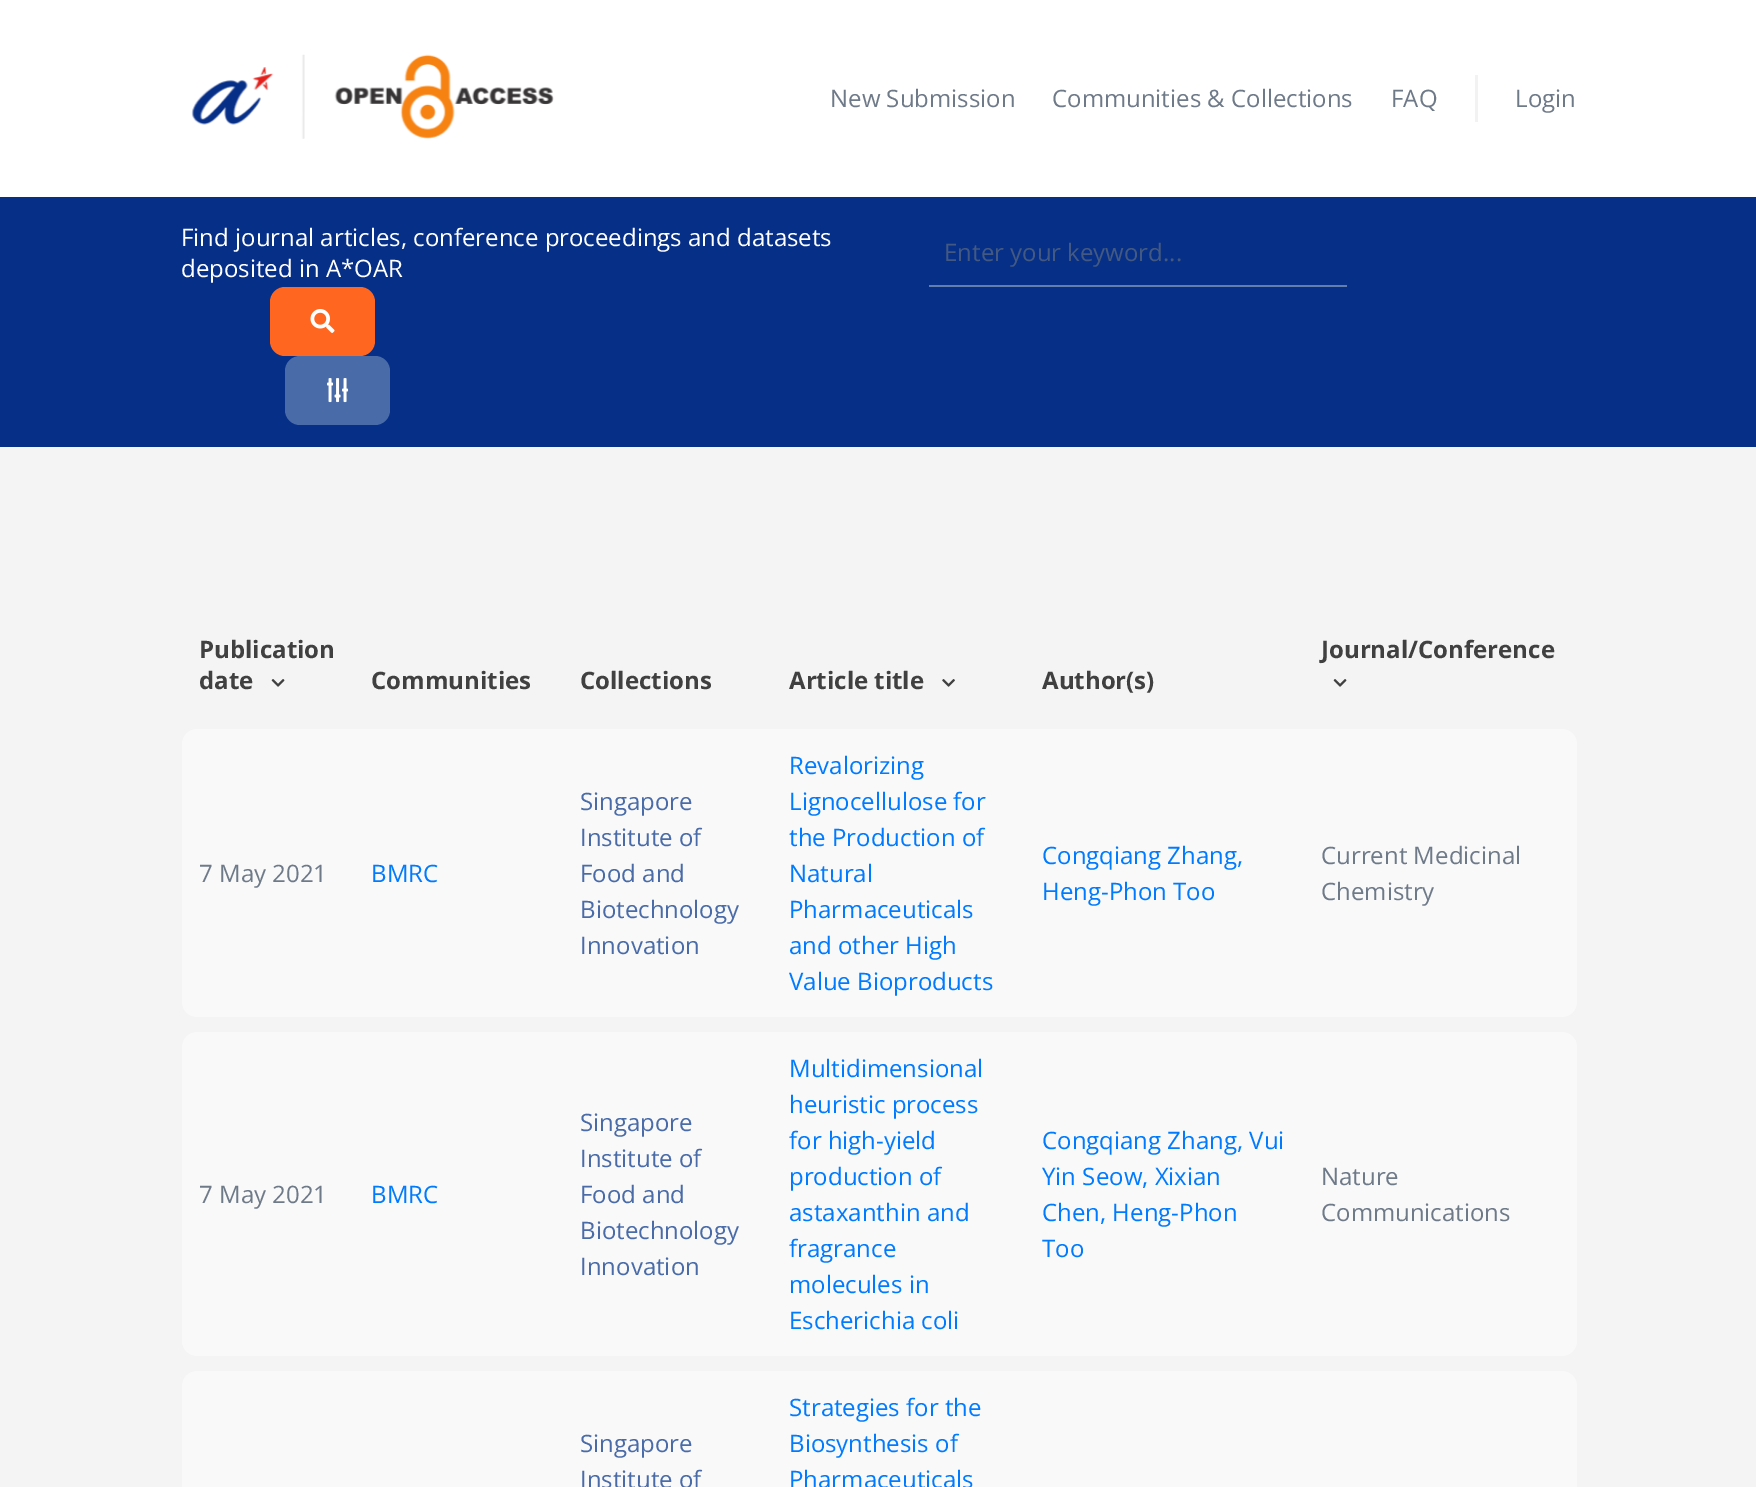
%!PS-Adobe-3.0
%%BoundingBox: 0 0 1756 1487
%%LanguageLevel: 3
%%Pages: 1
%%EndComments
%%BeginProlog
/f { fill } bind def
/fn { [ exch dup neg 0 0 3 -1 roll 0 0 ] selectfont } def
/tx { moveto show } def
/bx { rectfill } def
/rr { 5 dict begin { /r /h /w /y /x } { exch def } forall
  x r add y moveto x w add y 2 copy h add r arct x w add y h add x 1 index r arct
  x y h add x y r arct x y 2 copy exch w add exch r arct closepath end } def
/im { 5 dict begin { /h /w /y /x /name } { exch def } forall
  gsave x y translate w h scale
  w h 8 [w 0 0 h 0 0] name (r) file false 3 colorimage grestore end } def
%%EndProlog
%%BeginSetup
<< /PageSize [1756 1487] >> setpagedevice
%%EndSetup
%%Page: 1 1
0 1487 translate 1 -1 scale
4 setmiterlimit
0.957 setgray
0 0 1756 1487 bx
1 setgray
0 0 1756 197 bx
(image0.raw) 191 54 363 85 im
/OpenSans-Regular 24 fn
0.435 0.478 0.537 setrgbcolor
(New Submission) 830 107 tx
(Communities & Collections) 1052 107 tx
(FAQ) 1391 107 tx
0.949 setgray
1475 75 3 47 bx
0.435 0.478 0.537 setrgbcolor
(Login) 1515 107 tx
0.024 0.184 0.529 setrgbcolor
0 197 1756 250 bx
1 setgray
(Find journal articles, conference proceedings and datasets) 181 246 tx
(deposited in A*OAR) 181 277 tx
0.388 0.49 0.678 setrgbcolor
929 285 418 2 bx
0.263 0.349 0.506 setrgbcolor
(Enter your keyword...) 944 261 tx
1 0.404 0.125 setrgbcolor
270 287 105 69 15 rr f
(image1.raw) 310 309 25 24 im
0.286 0.42 0.659 setrgbcolor
285 356 105 69 15 rr f
(image2.raw) 327 378 22 25 im
/OpenSans-Bold 24 fn
0.251 setgray
(Publication) 199 658 tx
(date) 199 689 tx
(image3.raw) 271 679 14 8 im
(Journal/Conference) 1321 658 tx
(image3.raw) 1333 679 14 8 im
(Communities) 371 689 tx
(Collections) 580 689 tx
(Article title) 789 689 tx
(image4.raw) 942 679 13 8 im
(Author\(s\)) 1042 689 tx
0.976 setgray
182 729 1395 288 15 rr f
/OpenSans-Regular 24 fn
0.435 0.478 0.537 setrgbcolor
(7 May 2021) 199 882 tx
0 0.482 1 setrgbcolor
(BMRC) 371 882 tx
0.286 0.42 0.659 setrgbcolor
(Singapore) 580 810 tx
(Institute of) 580 846 tx
(Food and) 580 882 tx
(Biotechnology) 580 918 tx
(Innovation) 580 954 tx
0 0.482 1 setrgbcolor
(Revalorizing) 789 774 tx
(Lignocellulose for) 789 810 tx
(the Production of) 789 846 tx
(Natural) 789 882 tx
(Pharmaceuticals) 789 918 tx
(and other High) 789 954 tx
(Value Bioproducts) 789 990 tx
(Congqiang Zhang,) 1042 864 tx
(Heng-Phon Too) 1042 900 tx
0.435 0.478 0.537 setrgbcolor
(Current Medicinal) 1321 864 tx
(Chemistry) 1321 900 tx
0.976 setgray
182 1032 1395 324 15 rr f
0.435 0.478 0.537 setrgbcolor
(7 May 2021) 199 1203 tx
0 0.482 1 setrgbcolor
(BMRC) 371 1203 tx
0.286 0.42 0.659 setrgbcolor
(Singapore) 580 1131 tx
(Institute of) 580 1167 tx
(Food and) 580 1203 tx
(Biotechnology) 580 1239 tx
(Innovation) 580 1275 tx
0 0.482 1 setrgbcolor
(Multidimensional) 789 1077 tx
(heuristic process) 789 1113 tx
(for high-yield) 789 1149 tx
(production of) 789 1185 tx
(astaxanthin and) 789 1221 tx
(fragrance) 789 1257 tx
(molecules in) 789 1293 tx
(Escherichia coli) 789 1329 tx
(Congqiang Zhang, Vui) 1042 1149 tx
(Yin Seow, Xixian) 1042 1185 tx
(Chen, Heng-Phon) 1042 1221 tx
(Too) 1042 1257 tx
0.435 0.478 0.537 setrgbcolor
(Nature) 1321 1185 tx
(Communications) 1321 1221 tx
0.976 setgray
182 1371 1395 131 15 rr f
0.286 0.42 0.659 setrgbcolor
(Singapore) 580 1452 tx
(Institute of) 580 1488 tx
0 0.482 1 setrgbcolor
(Strategies for the) 789 1416 tx
(Biosynthesis of) 789 1452 tx
(Pharmaceuticals) 789 1488 tx
showpage
%%EOF
